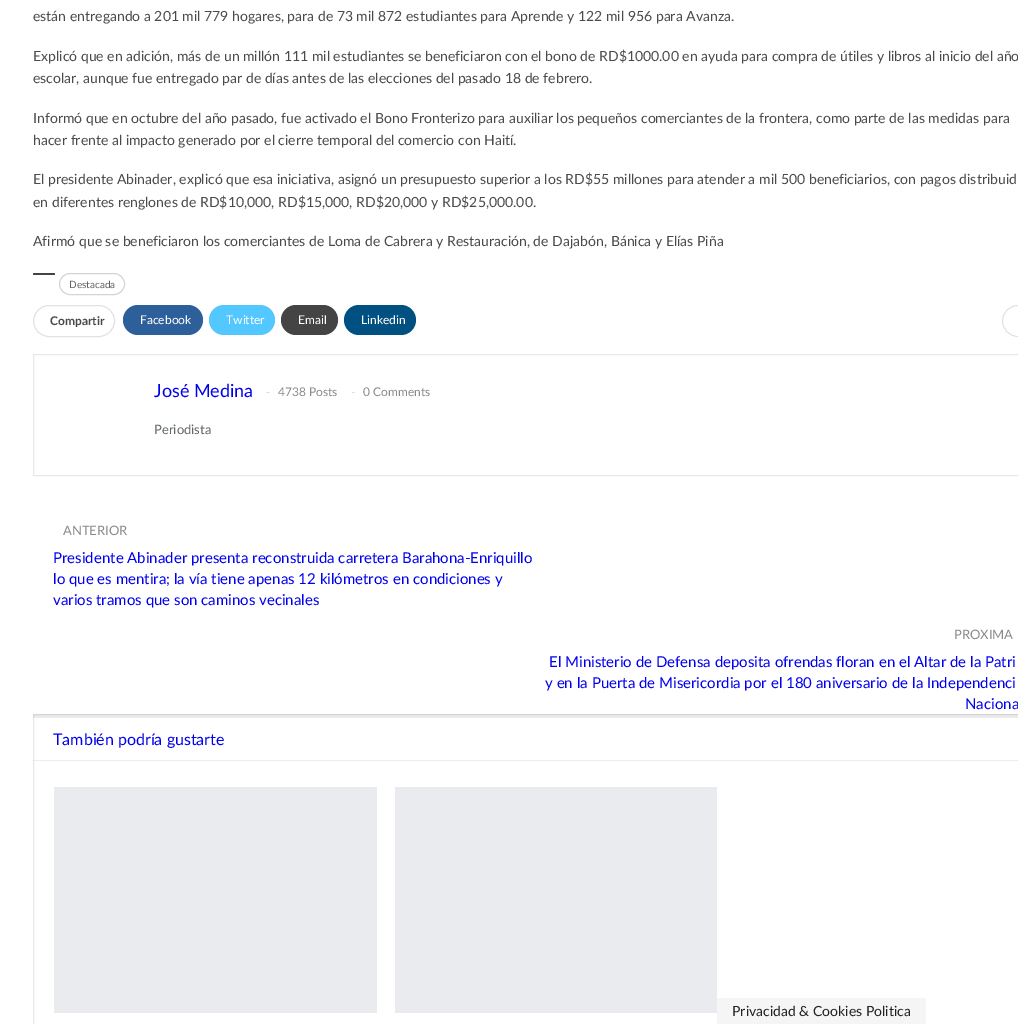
%!PS-Adobe-3.0
%%BoundingBox: 0 0 1026 1024
%%LanguageLevel: 3
%%Pages: 1
%%EndComments
%%BeginProlog
/f { fill } bind def
/S { stroke } bind def
/q { gsave } bind def
/Q { grestore } bind def
/fn { [ exch dup neg 0 0 3 -1 roll 0 0 ] selectfont } def
/tx { moveto show } def
/bx { rectfill } def
/al { dup .setfillconstantalpha .setstrokeconstantalpha } def
/rr { 5 dict begin { /r /h /w /y /x } { exch def } forall
  x r add y moveto x w add y 2 copy h add r arct x w add y h add x 1 index r arct
  x y h add x y r arct x y 2 copy exch w add exch r arct closepath end } def
%%EndProlog
%%BeginSetup
<< /PageSize [1026 1024] /PageUsesTransparency true >> setpagedevice
%%EndSetup
%%Page: 1 1
0 .pushpdf14devicefilter
0 1024 translate 1 -1 scale
4 setmiterlimit
1 setgray
0 0 1026 1024 bx
/Lato-Regular 14 fn
0.29 setgray
(están entregando a 201 mil 779 hogares, para de 73 mil 872 estudiantes para Aprende y 122 mil 956 para Avanza.) 33 21 tx
q
8 0 1010 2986 rectclip
(Explicó que en adición, más de un millón 111 mil estudiantes se beneficiaron con el bono de RD$1000.00 en ayuda para compra de útiles y libros al inicio del año) 33 61 tx
Q
(escolar, aunque fue entregado par de días antes de las elecciones del pasado 18 de febrero.) 33 83 tx
(Informó que en octubre del año pasado, fue activado el Bono Fronterizo para auxiliar los pequeños comerciantes de la frontera, como parte de las medidas para) 33 123 tx
(hacer frente al impacto generado por el cierre temporal del comercio con Haití.) 33 145 tx
(El presidente Abinader, explicó que esa iniciativa, asignó un presupuesto superior a los RD$55 millones para atender a mil 500 beneficiarios, con pagos distribuid) 33 184 tx
(en diferentes renglones de RD$10,000, RD$15,000, RD$20,000 y RD$25,000.00.) 33 207 tx
(Afirmó que se beneficiaron los comerciantes de Loma de Cabrera y Restauración, de Dajabón, Bánica y Elías Piña) 33 246 tx
0.267 setgray
33 273 22 2 1 rr f
0.831 setgray
59.5 273.5 65 21 10.5 rr S
/Lato-Regular 10 fn
0.373 setgray
(Destacada) 69 288 tx
0.886 setgray
33.5 305.5 81 31 15.5 rr S
/Lato-Bold 12 fn
0.29 setgray
(Compartir) 50 325 tx
0.176 0.373 0.604 setrgbcolor
123 305 80 30 15 rr f
/Lato-Regular 12 fn
1 setgray
(Facebook) 140 324 tx
0.325 0.78 1 setrgbcolor
209 305 66 30 15 rr f
1 setgray
(Twitter) 226 324 tx
0.267 setgray
281 305 57 30 15 rr f
1 setgray
(Email) 298 324 tx
0 0.318 0.51 setrgbcolor
344 305 72 30 15 rr f
1 setgray
(Linkedin) 361 324 tx
q
1002 305 16 32 rectclip
0.886 setgray
1002.5 305.5 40 31 15.5 rr S
Q
q
8 0 1010 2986 rectclip
0.91 setgray
33.5 354.5 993 121 rectstroke
Q
/Lato-Regular 18 fn
0 0 0.933 setrgbcolor
(José Medina) 154 397 tx
/Lato-Regular 12 fn
0.816 setgray
(-) 266 396 tx
0.541 setgray
(4738 Posts) 278 396 tx
0.816 setgray
(-) 351 396 tx
0.541 setgray
(0 Comments) 363 396 tx
/Lato-Regular 13 fn
0.373 0.396 0.412 setrgbcolor
(Periodista) 154 434 tx
0.541 setgray
(ANTERIOR) 63 535 tx
/Lato-Regular 15 fn
0 0 0.933 setrgbcolor
(Presidente Abinader presenta reconstruida carretera Barahona-Enriquillo) 53 563 tx
(lo que es mentira; la vía tiene apenas 12 kilómetros en condiciones y) 53 584 tx
(varios tramos que son caminos vecinales) 53 605 tx
/Lato-Regular 13 fn
0.541 setgray
(PROXIMA) 954 639 tx
/Lato-Regular 15 fn
0 0 0.933 setrgbcolor
(El Ministerio de Defensa deposita ofrendas floran en el Altar de la Patri) 549 667 tx
(y en la Puerta de Misericordia por el 180 aniversario de la Independenci) 545 688 tx
q
8 0 1010 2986 rectclip
(Naciona) 965 709 tx
0.91 setgray
33.5 714.5 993 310 rectstroke
Q
0.08 al
0 setgray
33 714 985 4 bx
/Lato-Regular 16 fn
1 al
0 0 0.933 setrgbcolor
(También podría gustarte) 53 745 tx
0.07 al
0 setgray
33 760 985 1 bx
1 al
0.914 0.922 0.933 setrgbcolor
54 787 323 226 bx
395 787 322 226 bx
0.961 setgray
717 998 209 26 bx
/Lato-Regular 14 fn
0.129 setgray
(Privacidad & Cookies Politica) 732 1016 tx
.poppdf14devicefilter showpage
%%EOF
